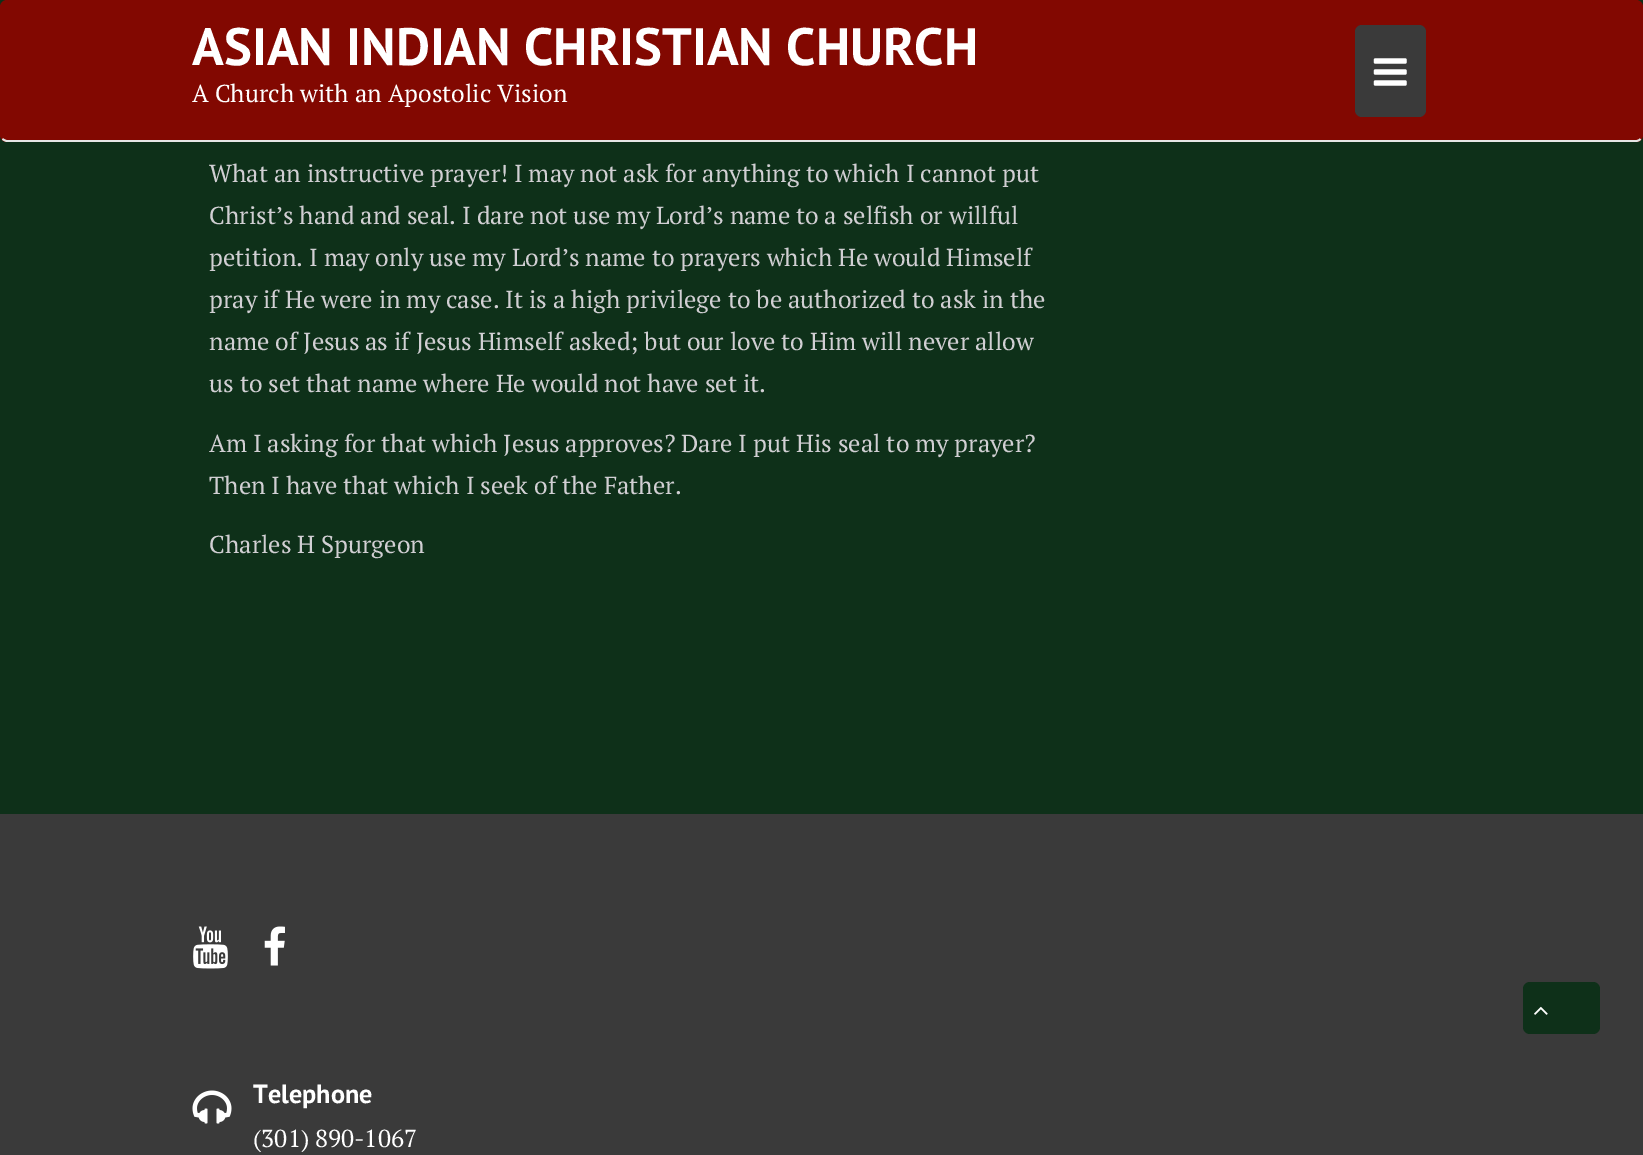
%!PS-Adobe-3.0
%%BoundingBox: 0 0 1643 1155
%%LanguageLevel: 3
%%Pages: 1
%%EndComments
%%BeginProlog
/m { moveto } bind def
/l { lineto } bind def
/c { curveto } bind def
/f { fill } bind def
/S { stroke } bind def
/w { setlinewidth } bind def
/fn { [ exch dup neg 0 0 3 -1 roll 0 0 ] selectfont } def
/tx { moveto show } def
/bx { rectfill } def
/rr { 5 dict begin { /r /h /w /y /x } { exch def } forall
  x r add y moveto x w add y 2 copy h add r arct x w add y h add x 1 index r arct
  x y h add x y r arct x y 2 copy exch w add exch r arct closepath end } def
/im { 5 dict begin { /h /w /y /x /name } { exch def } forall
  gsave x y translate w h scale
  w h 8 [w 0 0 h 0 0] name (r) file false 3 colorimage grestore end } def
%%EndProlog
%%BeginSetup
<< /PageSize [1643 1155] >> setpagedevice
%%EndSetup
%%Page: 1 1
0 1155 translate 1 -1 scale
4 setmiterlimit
0.055 0.188 0.098 setrgbcolor
0 0 1643 1155 bx
0.51 0.031 0.004 setrgbcolor
0 0 1643 142 7 rr f
0.902 setgray
1.8 w
1640.5 139 m 1639.5 140 1638 141 1636 141 c 7 141 l 5.5 141 4 140 2.5 139 c S
/PTSans-Bold 52.5 fn
1 setgray
(ASIAN INDIAN CHRISTIAN CHURCH) 192 65 tx
0.227 setgray
1355 25 71 92 7 rr f
(image0.raw) 1373 58 34 28 im
/PTSerif-Regular 24.5 fn
1 setgray
(A Church with an Apostolic Vision) 192 102 tx
0.82 0.812 0.827 setrgbcolor
(What an instructive prayer! I may not ask for anything to which I cannot put) 209 182 tx
(Christ’s hand and seal. I dare not use my Lord’s name to a selfish or willful) 209 224 tx
(petition. I may only use my Lord’s name to prayers which He would Himself) 209 266 tx
(pray if He were in my case. It is a high privilege to be authorized to ask in the) 209 308 tx
(name of Jesus as if Jesus Himself asked; but our love to Him will never allow) 209 350 tx
(us to set that name where He would not have set it.) 209 392 tx
(Am I asking for that which Jesus approves? Dare I put His seal to my prayer?) 209 452 tx
(Then I have that which I seek of the Father.) 209 494 tx
(Charles H Spurgeon) 209 553 tx
0.227 setgray
0 814 1643 341 bx
0.055 0.188 0.098 setrgbcolor
1523 982 77 52 7 rr f
(image1.raw) 1534 1006 14 9 im
(image2.raw) 193 926 35 43 im
(image3.raw) 264 926 21 40 im
(image4.raw) 192 1090 40 34 im
/PTSans-Bold 26.25 fn
1 setgray
(Telephone) 253 1103 tx
/PTSerif-Regular 24.5 fn
(\(301\) 890-1067) 253 1147 tx
showpage
%%EOF
